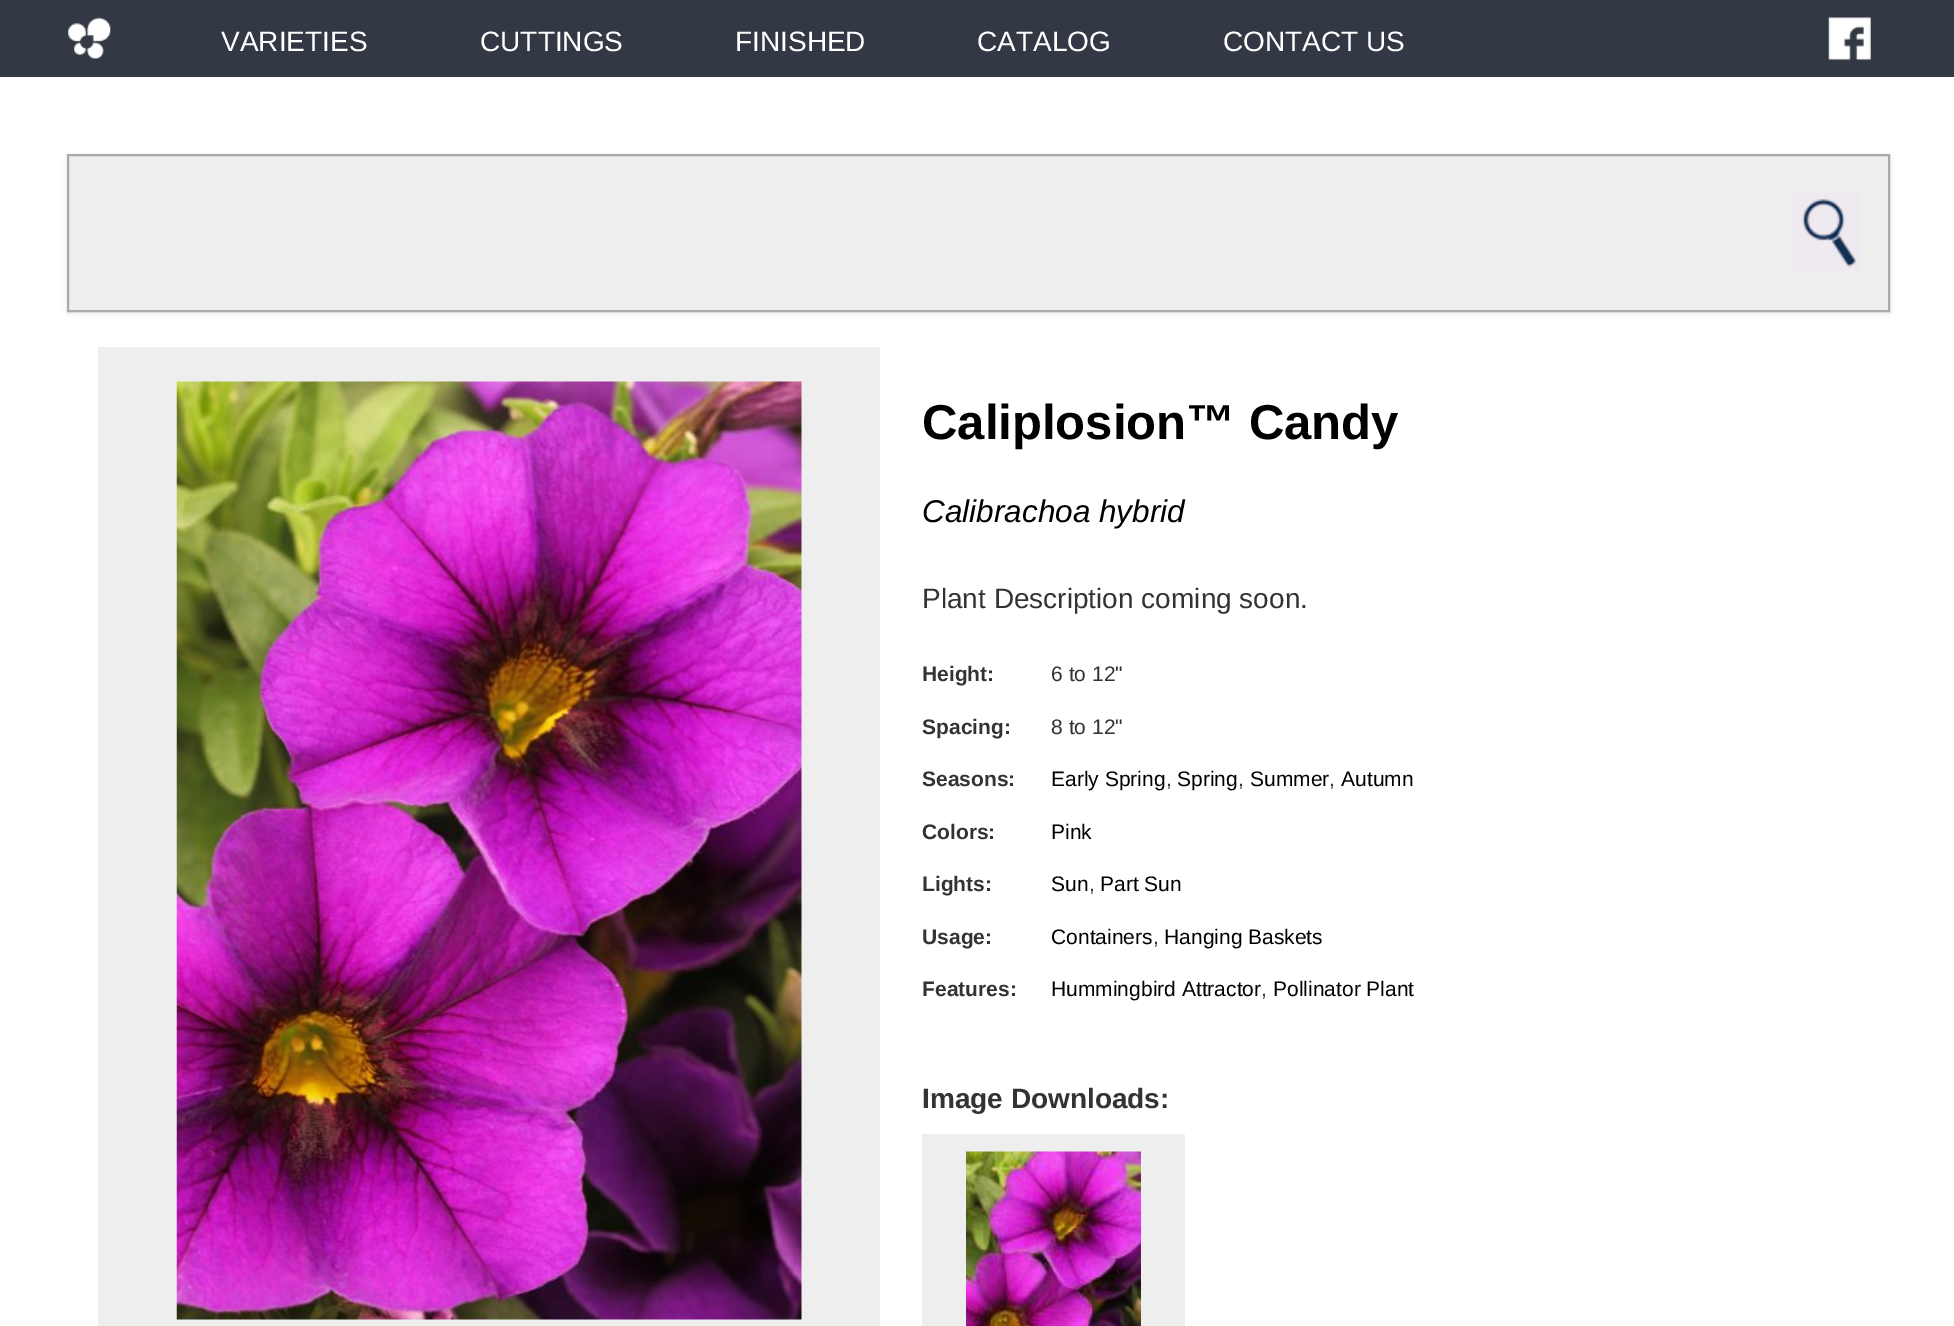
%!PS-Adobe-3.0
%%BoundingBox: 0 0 1954 1326
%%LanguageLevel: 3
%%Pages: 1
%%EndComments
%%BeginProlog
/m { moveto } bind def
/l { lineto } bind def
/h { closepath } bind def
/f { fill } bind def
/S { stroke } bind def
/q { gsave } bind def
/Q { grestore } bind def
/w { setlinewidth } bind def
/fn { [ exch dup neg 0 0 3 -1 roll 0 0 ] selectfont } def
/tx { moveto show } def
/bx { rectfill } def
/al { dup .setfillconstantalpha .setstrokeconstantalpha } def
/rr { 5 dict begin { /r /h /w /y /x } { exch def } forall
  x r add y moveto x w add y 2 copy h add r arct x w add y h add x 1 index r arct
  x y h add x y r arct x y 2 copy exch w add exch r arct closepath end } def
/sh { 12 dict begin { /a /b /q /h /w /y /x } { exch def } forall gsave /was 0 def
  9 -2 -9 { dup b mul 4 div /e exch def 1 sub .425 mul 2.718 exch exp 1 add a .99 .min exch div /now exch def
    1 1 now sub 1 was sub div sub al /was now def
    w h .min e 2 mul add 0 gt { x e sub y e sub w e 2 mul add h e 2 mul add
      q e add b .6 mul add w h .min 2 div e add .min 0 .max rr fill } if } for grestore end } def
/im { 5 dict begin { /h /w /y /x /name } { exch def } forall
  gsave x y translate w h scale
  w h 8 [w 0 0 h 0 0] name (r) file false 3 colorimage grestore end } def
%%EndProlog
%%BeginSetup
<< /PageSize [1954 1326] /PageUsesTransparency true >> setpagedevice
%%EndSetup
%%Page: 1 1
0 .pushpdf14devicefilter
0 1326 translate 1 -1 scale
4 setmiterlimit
1 setgray
0 0 1954 1326 bx
0.196 0.224 0.267 setrgbcolor
0 0 1954 77 bx
(image0.raw) 68 17 43 42 im
/LiberationSans-Regular 28 fn
1 setgray
(VARIETIES) 221 51 tx
(CUTTINGS) 480 51 tx
(FINISHED) 735 51 tx
(CATALOG) 977 51 tx
(CONTACT US) 1223 51 tx
(image1.raw) 1828 17 43 43 im
0 setgray
67 156 1823 157 0 2.5 0.1 sh
0.933 setgray
68 155 m 1889 155 l 1889 311 l 68 311 l h q f Q
0.667 setgray
2 w
S
(image2.raw) 1790 191 71 80 im
0.933 setgray
98 347 782 979 bx
(image3.raw) 176 381 626 939 im
/LiberationSans-Bold 49 fn
0 setgray
(Caliplosion™ Candy) 922 439 tx
/LiberationSans-Italic 31.5 fn
(Calibrachoa hybrid) 922 522 tx
/LiberationSans-Regular 28 fn
0.2 setgray
(Plant Description coming soon.) 922 608 tx
/LiberationSans-Bold 21 fn
(Height:) 922 681 tx
/LiberationSans-Regular 21 fn
(6 to 12") 1051 681 tx
/LiberationSans-Bold 21 fn
(Spacing:) 922 734 tx
/LiberationSans-Regular 21 fn
(8 to 12") 1051 734 tx
/LiberationSans-Bold 21 fn
(Seasons:) 922 786 tx
/LiberationSans-Regular 21 fn
0 setgray
(Early Spring) 1051 786 tx
0.2 setgray
(,) 1166 786 tx
0 setgray
(Spring) 1177 786 tx
0.2 setgray
(,) 1238 786 tx
0 setgray
(Summer) 1250 786 tx
0.2 setgray
(,) 1329 786 tx
0 setgray
(Autumn) 1341 786 tx
/LiberationSans-Bold 21 fn
0.2 setgray
(Colors:) 922 839 tx
/LiberationSans-Regular 21 fn
0 setgray
(Pink) 1051 839 tx
/LiberationSans-Bold 21 fn
0.2 setgray
(Lights:) 922 891 tx
/LiberationSans-Regular 21 fn
0 setgray
(Sun) 1051 891 tx
0.2 setgray
(,) 1089 891 tx
0 setgray
(Part Sun) 1100 891 tx
/LiberationSans-Bold 21 fn
0.2 setgray
(Usage:) 922 944 tx
/LiberationSans-Regular 21 fn
0 setgray
(Containers) 1051 944 tx
0.2 setgray
(,) 1153 944 tx
0 setgray
(Hanging Baskets) 1164 944 tx
/LiberationSans-Bold 21 fn
0.2 setgray
(Features:) 922 996 tx
/LiberationSans-Regular 21 fn
0 setgray
(Hummingbird Attractor) 1051 996 tx
0.2 setgray
(,) 1261 996 tx
0 setgray
(Pollinator Plant) 1273 996 tx
/LiberationSans-Bold 28 fn
0.2 setgray
(Image Downloads:) 922 1108 tx
0.933 setgray
922 1134 263 192 bx
(image4.raw) 966 1151 175 175 im
.poppdf14devicefilter showpage
%%EOF
